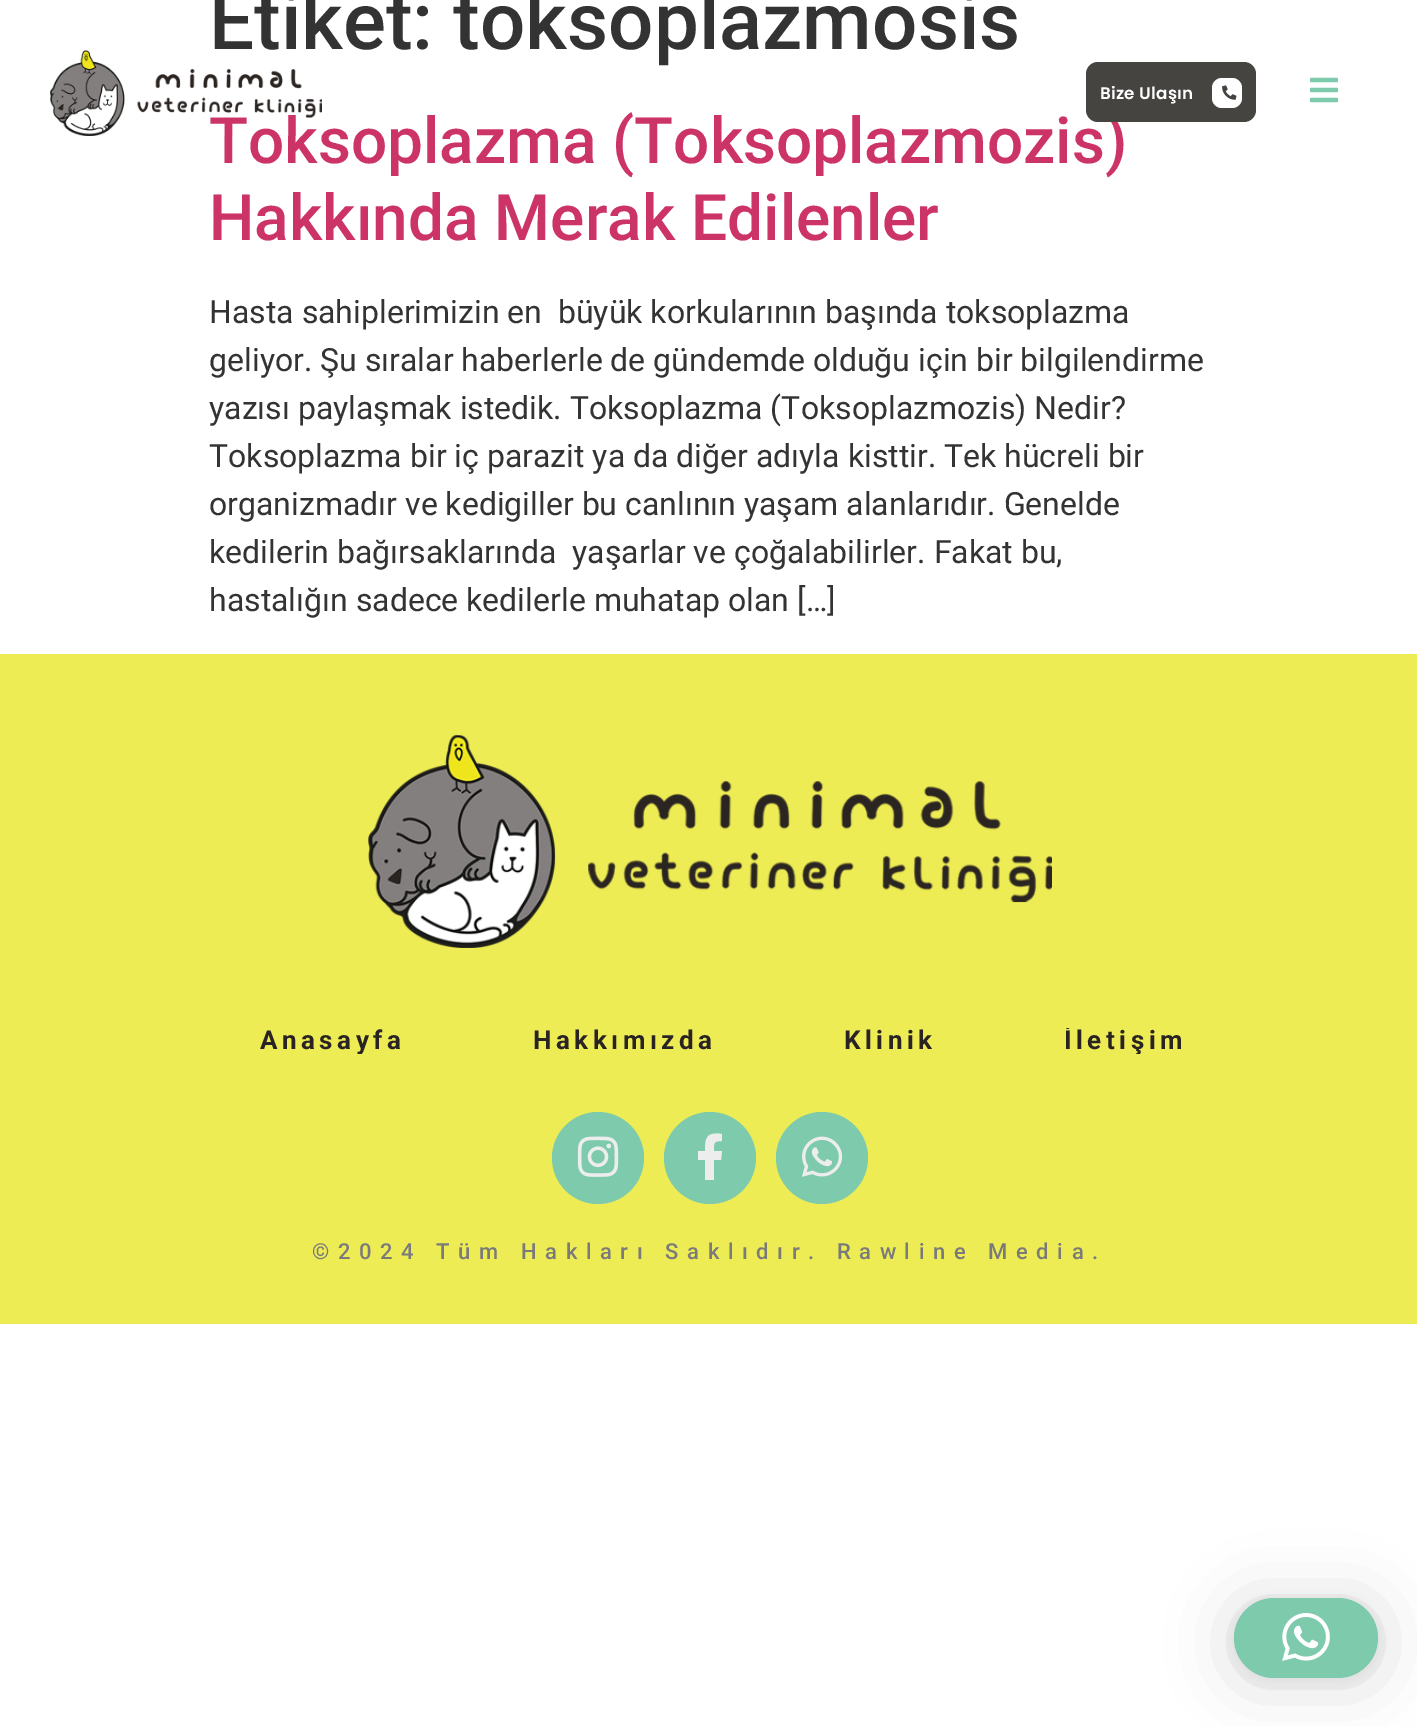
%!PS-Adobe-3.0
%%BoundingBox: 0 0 1417 1726
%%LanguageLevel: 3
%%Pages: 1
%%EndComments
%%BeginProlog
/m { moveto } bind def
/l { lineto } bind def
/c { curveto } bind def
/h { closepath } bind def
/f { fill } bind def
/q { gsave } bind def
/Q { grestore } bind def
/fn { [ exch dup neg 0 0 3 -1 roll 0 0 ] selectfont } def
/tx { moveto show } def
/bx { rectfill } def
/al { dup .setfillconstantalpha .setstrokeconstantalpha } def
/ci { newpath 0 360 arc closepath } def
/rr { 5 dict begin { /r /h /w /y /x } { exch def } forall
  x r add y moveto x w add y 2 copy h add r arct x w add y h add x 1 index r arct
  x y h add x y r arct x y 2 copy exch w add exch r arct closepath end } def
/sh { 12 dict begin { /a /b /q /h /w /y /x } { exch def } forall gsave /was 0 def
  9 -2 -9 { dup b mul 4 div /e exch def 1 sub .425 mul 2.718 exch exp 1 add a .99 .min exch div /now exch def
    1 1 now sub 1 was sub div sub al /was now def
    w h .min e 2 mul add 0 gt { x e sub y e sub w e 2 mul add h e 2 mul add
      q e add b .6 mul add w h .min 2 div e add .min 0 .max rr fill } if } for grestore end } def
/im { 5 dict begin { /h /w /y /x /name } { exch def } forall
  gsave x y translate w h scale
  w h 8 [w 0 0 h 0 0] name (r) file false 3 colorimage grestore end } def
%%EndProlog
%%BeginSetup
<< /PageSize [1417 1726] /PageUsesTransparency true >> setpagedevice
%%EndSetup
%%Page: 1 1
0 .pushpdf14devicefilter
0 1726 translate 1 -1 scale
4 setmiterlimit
1 setgray
0 0 1417 1726 bx
/Roboto-Medium 80 fn
0.2 setgray
(Etiket: toksoplazmosis) 209 49 tx
/Roboto-Medium 64 fn
0.8 0.2 0.4 setrgbcolor
(Toksoplazma \(Toksoplazmozis\)) 209 163 tx
(Hakkında Merak Edilenler) 209 240 tx
/Roboto-Regular 32 fn
0.2 setgray
(Hasta sahiplerimizin en  büyük korkularının başında toksoplazma) 209 323 tx
(geliyor. Şu sıralar haberlerle de gündemde olduğu için bir bilgilendirme) 209 371 tx
(yazısı paylaşmak istedik. Toksoplazma \(Toksoplazmozis\) Nedir?) 209 419 tx
(Toksoplazma bir iç parazit ya da diğer adıyla kisttir. Tek hücreli bir) 209 467 tx
(organizmadır ve kedigiller bu canlının yaşam alanlarıdır. Genelde) 209 515 tx
(kedilerin bağırsaklarında  yaşarlar ve çoğalabilirler. Fakat bu,) 209 563 tx
(hastalığın sadece kedilerle muhatap olan […]) 209 611 tx
(image0.raw) 50 50 272 86 im
0.271 0.267 0.251 setrgbcolor
1086 62 170 60 12 rr f
/Poppins-SemiBold 16.75 fn
1 setgray
1100 99 m 0.25 0 (Bize Ulaşın) ashow
1212 78 30 30 10 rr f
(image1.raw) 1222 85 15 15 im
(image2.raw) 1310 77 28 26 im
0.933 0.925 0.329 setrgbcolor
0 654 1417 670 bx
(image3.raw) 368 735 684 213 im
q
60 1028 1298 26 rectclip
/Roboto-Bold 26 fn
0.161 0.137 0.137 setrgbcolor
260 1049 m 4.5 0 (Anasayfa) ashow
Q
/Roboto-Bold 26 fn
0.161 0.137 0.137 setrgbcolor
533 1049 m 4.5 0 (Hakkımızda) ashow
844 1049 m 4.5 0 (Klinik) ashow
q
60 1028 1298 26 rectclip
1064 1049 m 4.5 0 (İletişim) ashow
Q
0.49 0.792 0.678 setrgbcolor
598 1158 46 ci f
(image4.raw) 577 1136 42 41 im
710 1158 46 ci f
0.929 setgray
721 1160 m 714 1160 l 714 1180 l 705 1180 l 705 1160 l 698 1160 l 698 1151 l 705 1151 l 705 1137 707 1132 722 1134 c 722 1141 l 713 1141 714 1143 714 1151 c 722 1151 l h f
0.49 0.792 0.678 setrgbcolor
822 1158 46 ci f
(image5.raw) 802 1136 41 41 im
/Roboto-Medium 22 fn
0.478 setgray
312 1259 m 8.6 0 (©2024 Tüm Hakları Saklıdır. Rawline Media.) ashow
0 setgray
1234 1602 144 80 40 32 0.16 sh
1234 1600 144 80 40 6 0.06 sh
0.49 0.792 0.678 setrgbcolor
1234 1598 144 80 40 rr f
(image6.raw) 1282 1613 48 48 im
.poppdf14devicefilter showpage
%%EOF
